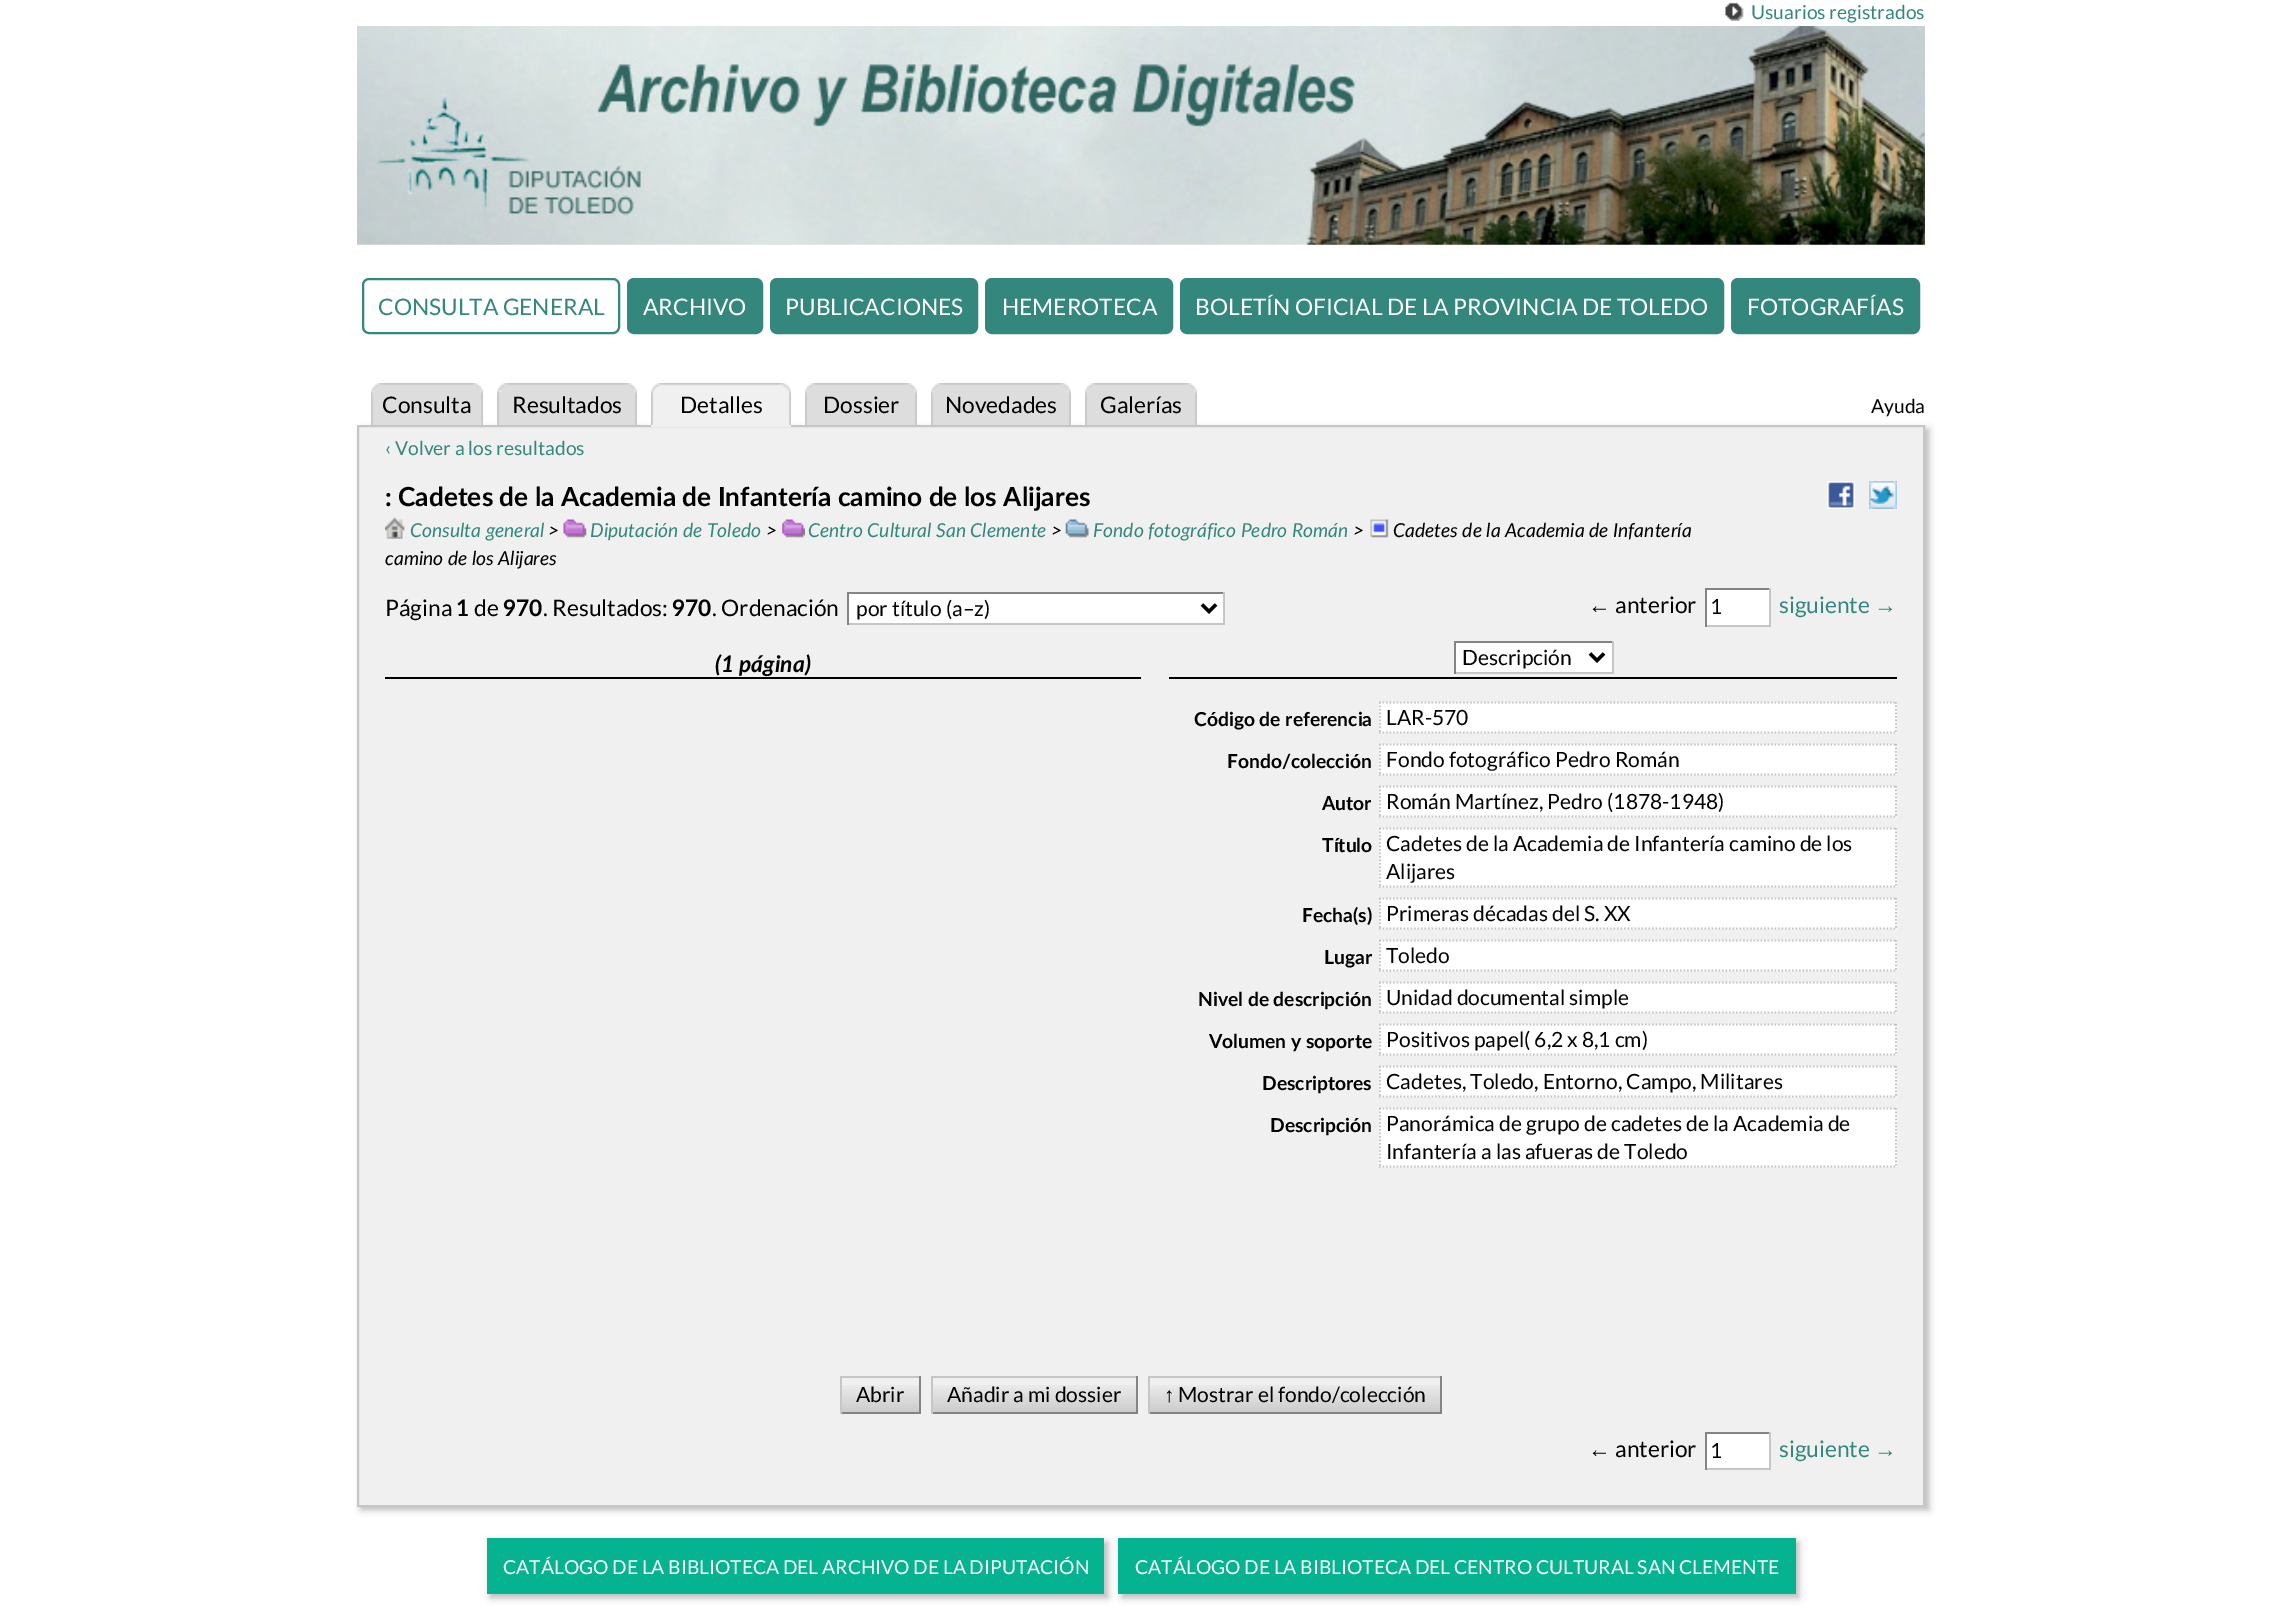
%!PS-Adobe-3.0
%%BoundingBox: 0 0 2282 1611
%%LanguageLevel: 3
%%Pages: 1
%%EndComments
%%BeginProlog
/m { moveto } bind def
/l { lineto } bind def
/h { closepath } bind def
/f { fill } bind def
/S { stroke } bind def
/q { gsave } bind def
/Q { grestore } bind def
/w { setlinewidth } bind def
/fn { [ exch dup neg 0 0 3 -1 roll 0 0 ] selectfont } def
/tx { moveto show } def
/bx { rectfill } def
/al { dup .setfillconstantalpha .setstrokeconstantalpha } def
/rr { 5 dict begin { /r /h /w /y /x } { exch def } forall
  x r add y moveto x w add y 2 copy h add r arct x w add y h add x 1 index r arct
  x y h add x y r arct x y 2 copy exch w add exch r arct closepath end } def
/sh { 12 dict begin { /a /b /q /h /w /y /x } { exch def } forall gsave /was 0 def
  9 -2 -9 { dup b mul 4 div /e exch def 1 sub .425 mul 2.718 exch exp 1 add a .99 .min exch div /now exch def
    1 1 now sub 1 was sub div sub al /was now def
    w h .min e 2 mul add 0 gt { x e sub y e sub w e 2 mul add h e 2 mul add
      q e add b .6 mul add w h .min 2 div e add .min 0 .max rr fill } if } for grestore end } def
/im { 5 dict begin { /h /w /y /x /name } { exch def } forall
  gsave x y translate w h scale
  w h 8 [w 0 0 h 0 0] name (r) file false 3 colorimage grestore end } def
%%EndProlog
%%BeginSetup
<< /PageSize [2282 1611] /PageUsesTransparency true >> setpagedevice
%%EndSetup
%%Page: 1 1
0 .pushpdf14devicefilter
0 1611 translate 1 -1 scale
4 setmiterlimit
1 setgray
0 0 2282 1611 bx
(image0.raw) 1725 2 19 19 im
/Lato-Regular 19.25 fn
0.2 0.529 0.49 setrgbcolor
(Usuarios registrados) 1751 19 tx
(image1.raw) 357 26 1568 219 im
2 w
363 279 256 54 6 rr S
/Lato-Regular 22.75 fn
(CONSULTA GENERAL) 378 315 tx
628 279 134 54 6 rr q f Q
S
1 setgray
(ARCHIVO) 643 315 tx
0.2 0.529 0.49 setrgbcolor
771 279 206 54 6 rr q f Q
S
1 setgray
(PUBLICACIONES) 785 315 tx
0.2 0.529 0.49 setrgbcolor
986 279 186 54 6 rr q f Q
S
1 setgray
(HEMEROTECA) 1002 315 tx
0.2 0.529 0.49 setrgbcolor
1181 279 542 54 6 rr q f Q
S
1 setgray
(BOLETÍN OFICIAL DE LA PROVINCIA DE TOLEDO) 1195 315 tx
0.2 0.529 0.49 setrgbcolor
1732 279 187 54 6 rr q f Q
S
1 setgray
(FOTOGRAFÍAS) 1747 315 tx
0.733 setgray
361 429 1568 1081 0 3.5 1 sh
0.867 setgray
372 384 110 41 bx
(image2.raw) 371 383 112 42 im
0 setgray
(Consulta) 382 413 tx
0.867 setgray
498 384 138 41 bx
(image3.raw) 497 383 140 42 im
0 setgray
(Resultados) 512 413 tx
0.941 setgray
358 426 m 1924 426 l 1924 1506 l 358 1506 l h q f Q
0.776 setgray
S
0.941 setgray
651 384 140 43 bx
(image4.raw) 651 383 140 42 im
0 setgray
(Detalles) 680 413 tx
0.867 setgray
806 384 110 41 bx
(image2.raw) 805 383 112 42 im
0 setgray
(Dossier) 823 413 tx
0.867 setgray
932 384 138 41 bx
(image5.raw) 931 383 140 42 im
0 setgray
(Novedades) 945 413 tx
0.867 setgray
1086 384 110 41 bx
(image2.raw) 1085 383 112 42 im
0 setgray
(Galerías) 1100 413 tx
/Lato-Regular 19.25 fn
(Ayuda) 1871 413 tx
0.2 0.529 0.49 setrgbcolor
(‹ Volver a los resultados) 385 455 tx
/Lato-Bold 26.25 fn
0 setgray
(: Cadetes de la Academia de Infantería camino de los Alijares) 385 506 tx
(image6.raw) 1827 481 28 28 im
(image7.raw) 1869 481 28 28 im
(image8.raw) 385 517 20 22 im
/Lato-Italic 19.25 fn
0.2 0.529 0.49 setrgbcolor
(Consulta general) 410 537 tx
0 setgray
(>) 548 537 tx
(image9.raw) 563 519 24 19 im
0.2 0.529 0.49 setrgbcolor
(Diputación de Toledo) 590 537 tx
0 setgray
(>) 766 537 tx
(image10.raw) 782 519 23 19 im
0.2 0.529 0.49 setrgbcolor
(Centro Cultural San Clemente) 808 537 tx
0 setgray
(>) 1051 537 tx
(image11.raw) 1065 519 24 19 im
0.2 0.529 0.49 setrgbcolor
(Fondo fotográfico Pedro Román) 1093 537 tx
0 setgray
(>) 1353 537 tx
(image12.raw) 1370 519 19 19 im
(Cadetes de la Academia de Infantería) 1393 537 tx
(camino de los Alijares) 385 565 tx
/Lato-Regular 22.75 fn
(Página) 385 616 tx
/Lato-Bold 22.75 fn
(1) 456 616 tx
/Lato-Regular 22.75 fn
(de) 474 616 tx
/Lato-Bold 22.75 fn
(970) 503 616 tx
/Lato-Regular 22.75 fn
(. Resultados:) 543 616 tx
/Lato-Bold 22.75 fn
(970) 672 616 tx
/Lato-Regular 22.75 fn
(. Ordenación) 712 616 tx
1 setgray
849 594 374 29 bx
0.518 setgray
847 592 378 2 bx
0.776 setgray
1223 592 2 33 bx
847 623 378 2 bx
0.518 setgray
847 592 2 33 bx
0 setgray
3.5 w
1202 604.5 m 1209 611.5 l 1216 604.5 l S
/Lato-Regular 21 fn
(por título \(a–z\)) 856 616 tx
/LiberationSans-Regular 22.75 fn
(←) 1588 613 tx
/Lato-Regular 22.75 fn
(anterior) 1615 613 tx
1 setgray
1707 590 62 35 bx
0.518 setgray
1705 588 66 2 bx
0.776 setgray
1769 588 2 39 bx
1705 625 66 2 bx
0.518 setgray
1705 588 2 39 bx
/Lato-Regular 21 fn
0 setgray
(1) 1710 614 tx
/Lato-Regular 22.75 fn
0.2 0.529 0.49 setrgbcolor
(siguiente) 1779 613 tx
/LiberationSans-Regular 22.75 fn
(→) 1874 613 tx
0 setgray
385 677 756 2 bx
/Lato-BoldItalic 22.75 fn
(\(1 página\)) 715 672 tx
1169 677 728 2 bx
1 setgray
1456 643 156 29 bx
0.518 setgray
1454 641 160 2 bx
0.776 setgray
1612 641 2 33 bx
1454 672 160 2 bx
0.518 setgray
1454 641 2 33 bx
0 setgray
1590 653.5 m 1597 660.5 l 1604 653.5 l S
/Lato-Regular 21 fn
(Descripción) 1462 665 tx
/Lato-Bold 19.25 fn
(Código de referencia) 1194 726 tx
1 setgray
1379 702 518 31 bx
0.776 setgray
1.8 w
[1.75 1.75] 0 setdash
1379 702.5 m 1897 702.5 l S
1896 702 m 1896 733 l S
1379 732.5 m 1897 732.5 l S
1380 702 m 1380 733 l S
/Lato-Regular 21 fn
0 setgray
(LAR-570) 1386 725 tx
/Lato-Bold 19.25 fn
(Fondo/colección) 1227 768 tx
1 setgray
1379 744 518 31 bx
0.776 setgray
1379 744.5 m 1897 744.5 l S
1896 744 m 1896 775 l S
1379 774.5 m 1897 774.5 l S
1380 744 m 1380 775 l S
/Lato-Regular 21 fn
0 setgray
(Fondo fotográfico Pedro Román) 1386 767 tx
/Lato-Bold 19.25 fn
(Autor) 1322 810 tx
1 setgray
1379 786 518 31 bx
0.776 setgray
1379 786.5 m 1897 786.5 l S
1896 786 m 1896 817 l S
1379 816.5 m 1897 816.5 l S
1380 786 m 1380 817 l S
/Lato-Regular 21 fn
0 setgray
(Román Martínez, Pedro \(1878-1948\)) 1386 809 tx
/Lato-Bold 19.25 fn
(Título) 1322 852 tx
1 setgray
1379 828 518 59 bx
0.776 setgray
1379 828.5 m 1897 828.5 l S
1896 828 m 1896 887 l S
1379 886.5 m 1897 886.5 l S
1380 828 m 1380 887 l S
/Lato-Regular 21 fn
0 setgray
(Cadetes de la Academia de Infantería camino de los) 1386 851 tx
(Alijares) 1386 879 tx
/Lato-Bold 19.25 fn
(Fecha\(s\)) 1302 922 tx
1 setgray
1379 898 518 31 bx
0.776 setgray
1379 898.5 m 1897 898.5 l S
1896 898 m 1896 929 l S
1379 928.5 m 1897 928.5 l S
1380 898 m 1380 929 l S
/Lato-Regular 21 fn
0 setgray
(Primeras décadas del S. XX) 1386 921 tx
/Lato-Bold 19.25 fn
(Lugar) 1324 964 tx
1 setgray
1379 940 518 31 bx
0.776 setgray
1379 940.5 m 1897 940.5 l S
1896 940 m 1896 971 l S
1379 970.5 m 1897 970.5 l S
1380 940 m 1380 971 l S
/Lato-Regular 21 fn
0 setgray
(Toledo) 1386 963 tx
/Lato-Bold 19.25 fn
(Nivel de descripción) 1198 1006 tx
1 setgray
1379 982 518 31 bx
0.776 setgray
1379 982.5 m 1897 982.5 l S
1896 982 m 1896 1013 l S
1379 1012.5 m 1897 1012.5 l S
1380 982 m 1380 1013 l S
/Lato-Regular 21 fn
0 setgray
(Unidad documental simple) 1386 1005 tx
/Lato-Bold 19.25 fn
(Volumen y soporte) 1209 1048 tx
1 setgray
1379 1024 518 31 bx
0.776 setgray
1379 1024.5 m 1897 1024.5 l S
1896 1024 m 1896 1055 l S
1379 1054.5 m 1897 1054.5 l S
1380 1024 m 1380 1055 l S
/Lato-Regular 21 fn
0 setgray
(Positivos papel\( 6,2 x 8,1 cm\)) 1386 1047 tx
/Lato-Bold 19.25 fn
(Descriptores) 1262 1090 tx
1 setgray
1379 1066 518 31 bx
0.776 setgray
1379 1066.5 m 1897 1066.5 l S
1896 1066 m 1896 1097 l S
1379 1096.5 m 1897 1096.5 l S
1380 1066 m 1380 1097 l S
/Lato-Regular 21 fn
0 setgray
(Cadetes, Toledo, Entorno, Campo, Militares) 1386 1089 tx
/Lato-Bold 19.25 fn
(Descripción) 1270 1132 tx
1 setgray
1379 1108 518 59 bx
0.776 setgray
1379 1108.5 m 1897 1108.5 l S
1896 1108 m 1896 1167 l S
1379 1166.5 m 1897 1166.5 l S
1380 1108 m 1380 1167 l S
/Lato-Regular 21 fn
0 setgray
(Panorámica de grupo de cadetes de la Academia de) 1386 1131 tx
(Infantería a las afueras de Toledo) 1386 1159 tx
(image13.raw) 842 1385 77 27 im
0.776 setgray
840 1376 81 2 bx
0.518 setgray
919 1376 2 38 bx
840 1412 81 2 bx
0.776 setgray
840 1376 2 38 bx
0 setgray
(Abrir) 856 1402 tx
(image14.raw) 933 1385 203 27 im
0.776 setgray
931 1376 207 2 bx
0.518 setgray
1136 1376 2 38 bx
931 1412 207 2 bx
0.776 setgray
931 1376 2 38 bx
0 setgray
(Añadir a mi dossier) 947 1402 tx
(image15.raw) 1150 1385 290 27 im
0.776 setgray
1148 1376 294 2 bx
0.518 setgray
1440 1376 2 38 bx
1148 1412 294 2 bx
0.776 setgray
1148 1376 2 38 bx
/LiberationSans-Regular 21 fn
0 setgray
(↑) 1164 1402 tx
/Lato-Regular 21 fn
(Mostrar el fondo/colección) 1178 1402 tx
/LiberationSans-Regular 22.75 fn
(←) 1588 1457 tx
/Lato-Regular 22.75 fn
(anterior) 1615 1457 tx
1 setgray
1707 1434 62 34 bx
0.518 setgray
1705 1432 66 2 bx
0.776 setgray
1769 1432 2 38 bx
1705 1468 66 2 bx
0.518 setgray
1705 1432 2 38 bx
/Lato-Regular 21 fn
0 setgray
(1) 1710 1458 tx
/Lato-Regular 22.75 fn
0.2 0.529 0.49 setrgbcolor
(siguiente) 1779 1457 tx
/LiberationSans-Regular 22.75 fn
(→) 1874 1457 tx
0.733 setgray
490 1542 618 56 0 3.5 1 sh
0.02 0.702 0.569 setrgbcolor
487 1538 617 56 bx
/Lato-Regular 19.25 fn
1 setgray
(CATÁLOGO DE LA BIBLIOTECA DEL ARCHIVO DE LA DIPUTACIÓN) 503 1574 tx
0.733 setgray
1122 1542 677 56 0 3.5 1 sh
0.02 0.702 0.569 setrgbcolor
1118 1538 678 56 bx
1 setgray
(CATÁLOGO DE LA BIBLIOTECA DEL CENTRO CULTURAL SAN CLEMENTE) 1135 1574 tx
.poppdf14devicefilter showpage
%%EOF
